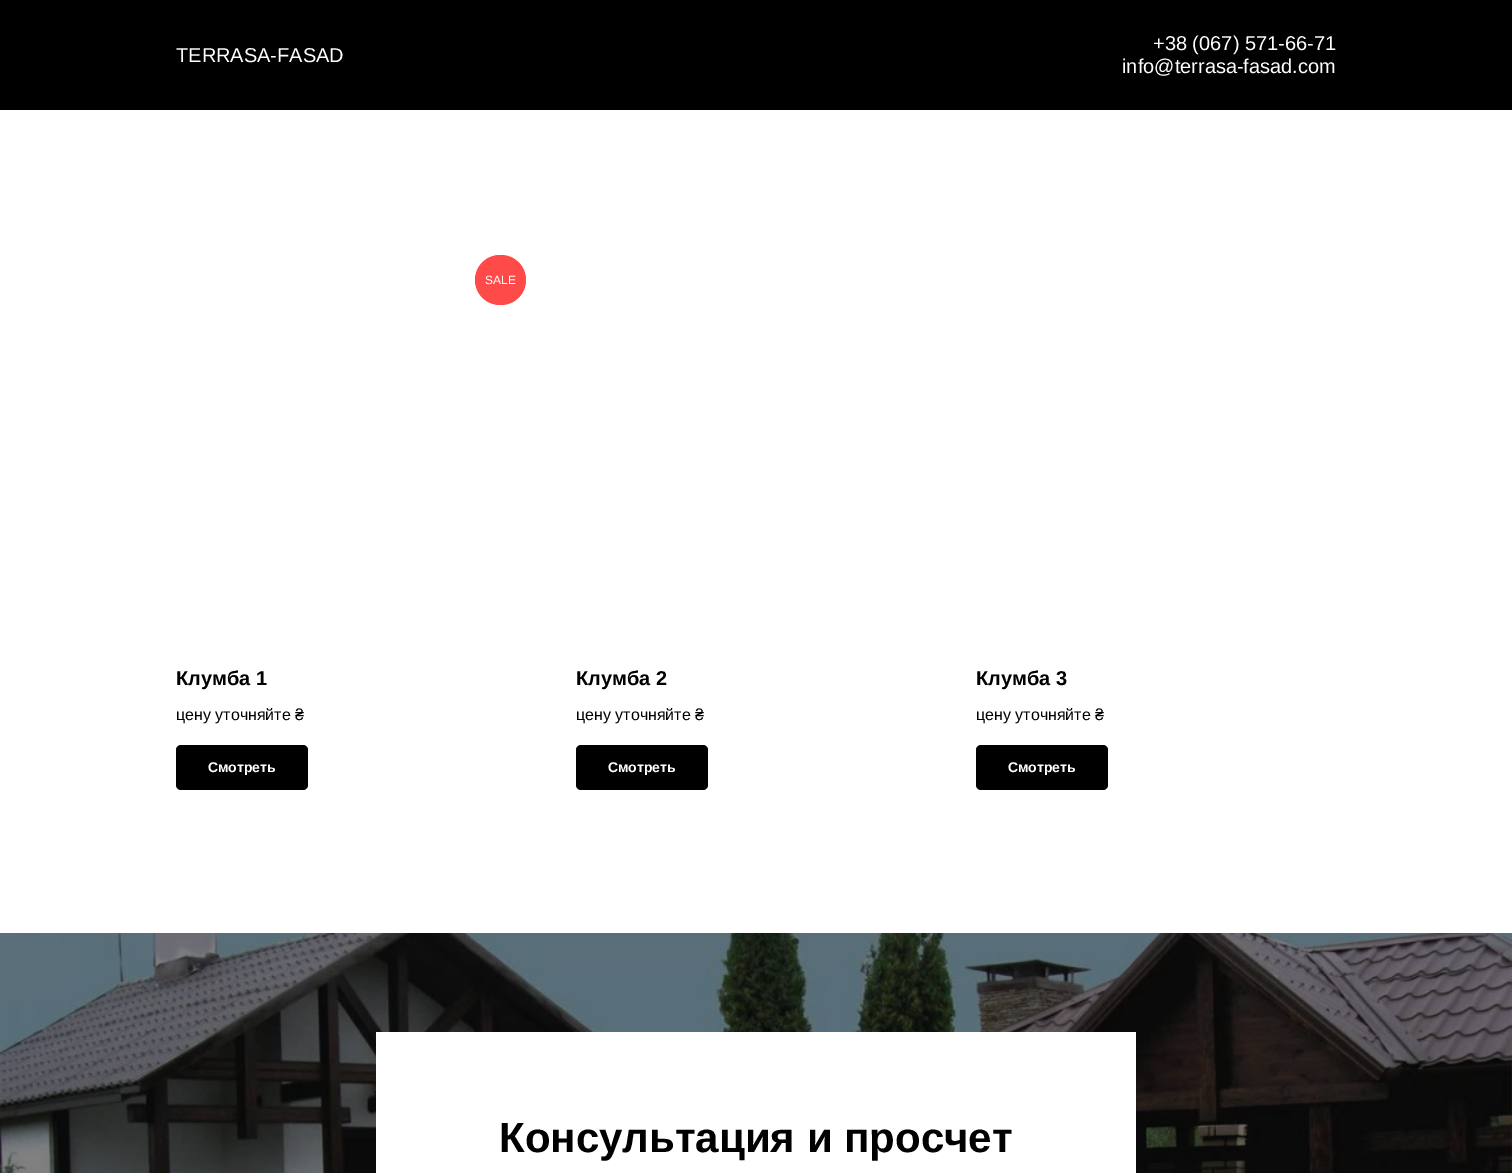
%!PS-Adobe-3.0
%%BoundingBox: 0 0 1512 1173
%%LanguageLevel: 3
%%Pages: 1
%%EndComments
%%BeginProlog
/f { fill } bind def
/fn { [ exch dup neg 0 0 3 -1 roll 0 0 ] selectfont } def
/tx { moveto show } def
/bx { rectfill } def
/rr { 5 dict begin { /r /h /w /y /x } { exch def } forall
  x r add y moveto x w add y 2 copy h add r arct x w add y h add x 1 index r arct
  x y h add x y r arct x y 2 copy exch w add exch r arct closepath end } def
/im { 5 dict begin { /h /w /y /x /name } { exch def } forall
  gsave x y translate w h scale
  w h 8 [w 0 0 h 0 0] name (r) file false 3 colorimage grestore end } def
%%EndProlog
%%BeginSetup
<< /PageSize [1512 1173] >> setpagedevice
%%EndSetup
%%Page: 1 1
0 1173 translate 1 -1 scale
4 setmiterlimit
1 setgray
0 0 1512 1173 bx
0 setgray
0 0 1512 110 bx
/LiberationSans-Regular 20 fn
1 setgray
(TERRASA-FASAD) 176 62 tx
(+38 \(067\) 571-66-71) 1153 50 tx
(info@terrasa-fasad.com) 1122 73 tx
1 0.29 0.29 setrgbcolor
475 255 51 50 25 rr f
/LiberationSans-Regular 12 fn
1 setgray
(SALE) 485 284 tx
/LiberationSans-Bold 20 fn
0 setgray
(Клумба 1) 176 685 tx
/LiberationSans-Regular 16 fn
(цену уточняйте ₴) 176 720 tx
176 745 132 45 5 rr f
/LiberationSans-Bold 14 fn
1 setgray
(Смотреть) 208 772 tx
/LiberationSans-Bold 20 fn
0 setgray
(Клумба 2) 576 685 tx
/LiberationSans-Regular 16 fn
(цену уточняйте ₴) 576 720 tx
576 745 132 45 5 rr f
/LiberationSans-Bold 14 fn
1 setgray
(Смотреть) 608 772 tx
/LiberationSans-Bold 20 fn
0 setgray
(Клумба 3) 976 685 tx
/LiberationSans-Regular 16 fn
(цену уточняйте ₴) 976 720 tx
976 745 132 45 5 rr f
/LiberationSans-Bold 14 fn
1 setgray
(Смотреть) 1008 772 tx
(image0.raw) 0 933 1512 240 im
376 1032 760 141 bx
/LiberationSans-Bold 42 fn
0 setgray
(Консультация и просчет) 499 1152 tx
showpage
%%EOF
